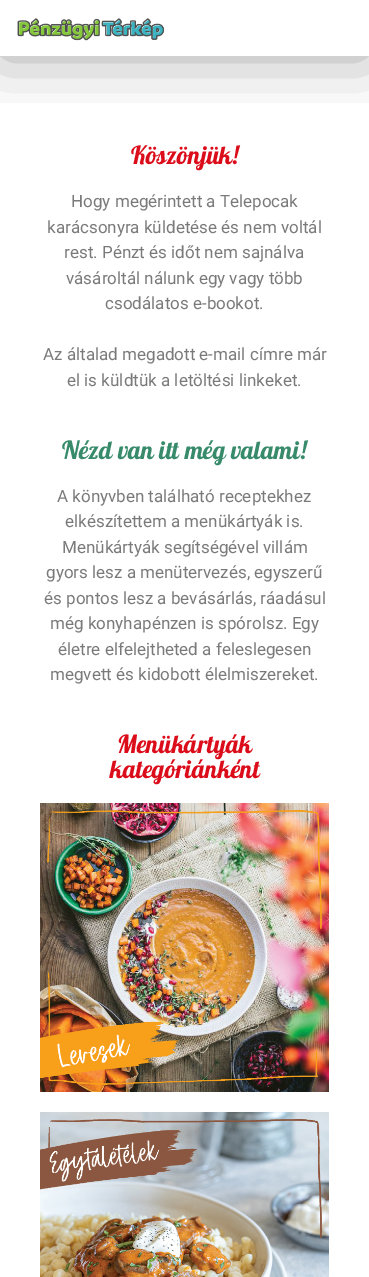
%!PS-Adobe-3.0
%%BoundingBox: 0 0 369 1277
%%LanguageLevel: 3
%%Pages: 1
%%EndComments
%%BeginProlog
/q { gsave } bind def
/Q { grestore } bind def
/fn { [ exch dup neg 0 0 3 -1 roll 0 0 ] selectfont } def
/tx { moveto show } def
/bx { rectfill } def
/al { dup .setfillconstantalpha .setstrokeconstantalpha } def
/rr { 5 dict begin { /r /h /w /y /x } { exch def } forall
  x r add y moveto x w add y 2 copy h add r arct x w add y h add x 1 index r arct
  x y h add x y r arct x y 2 copy exch w add exch r arct closepath end } def
/sh { 12 dict begin { /a /b /q /h /w /y /x } { exch def } forall gsave /was 0 def
  9 -2 -9 { dup b mul 4 div /e exch def 1 sub .425 mul 2.718 exch exp 1 add a .99 .min exch div /now exch def
    1 1 now sub 1 was sub div sub al /was now def
    w h .min e 2 mul add 0 gt { x e sub y e sub w e 2 mul add h e 2 mul add
      q e add b .6 mul add w h .min 2 div e add .min 0 .max rr fill } if } for grestore end } def
/im { 5 dict begin { /h /w /y /x /name } { exch def } forall
  gsave x y translate w h scale
  w h 8 [w 0 0 h 0 0] name (r) file false 3 colorimage grestore end } def
%%EndProlog
%%BeginSetup
<< /PageSize [369 1277] /PageUsesTransparency true >> setpagedevice
%%EndSetup
%%Page: 1 1
0 .pushpdf14devicefilter
0 1277 translate 1 -1 scale
4 setmiterlimit
1 setgray
0 0 369 1277 bx
q
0 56 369 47 rectclip
0 setgray
0 0 369 56 0 30 0.35 sh
Q
(image0.raw) 17 18 147 23 im
/Pattaya-Regular 25 fn
0.863 0.051 0.102 setrgbcolor
(Köszönjük!) 131 164 tx
/Roboto-Regular 17 fn
0.478 setgray
(Hogy megérintett a Telepocak) 71 207 tx
(karácsonyra küldetése és nem voltál) 47 233 tx
(rest. Pénzt és időt nem sajnálva) 64 258 tx
(vásároltál nálunk egy vagy több) 66 284 tx
(csodálatos e-bookot.) 105 309 tx
(Az általad megadott e-mail címre már) 43 360 tx
(el is küldtük a letöltési linkeket.) 67 386 tx
/Pattaya-Regular 25 fn
0.216 0.545 0.42 setrgbcolor
(Nézd van itt még valami!) 62 459 tx
/Roboto-Regular 17 fn
0.478 setgray
(A könyvben található receptekhez) 57 502 tx
(elkészítettem a menükártyák is.) 65 527 tx
(Menükártyák segítségével villám) 62 553 tx
(gyors lesz a menütervezés, egyszerű) 46 578 tx
(és pontos lesz a bevásárlás, ráadásul) 44 604 tx
(még konyhapénzen is spórolsz. Egy) 50 629 tx
(életre elfelejtheted a feleslegesen) 58 655 tx
(megvett és kidobott élelmiszereket.) 50 680 tx
/Pattaya-Regular 25 fn
0.863 0.051 0.102 setrgbcolor
(Menükártyák) 117 753 tx
(kategóriánként) 110 778 tx
(image1.raw) 40 803 289 289 im
(image2.raw) 40 1112 289 165 im
.poppdf14devicefilter showpage
%%EOF
